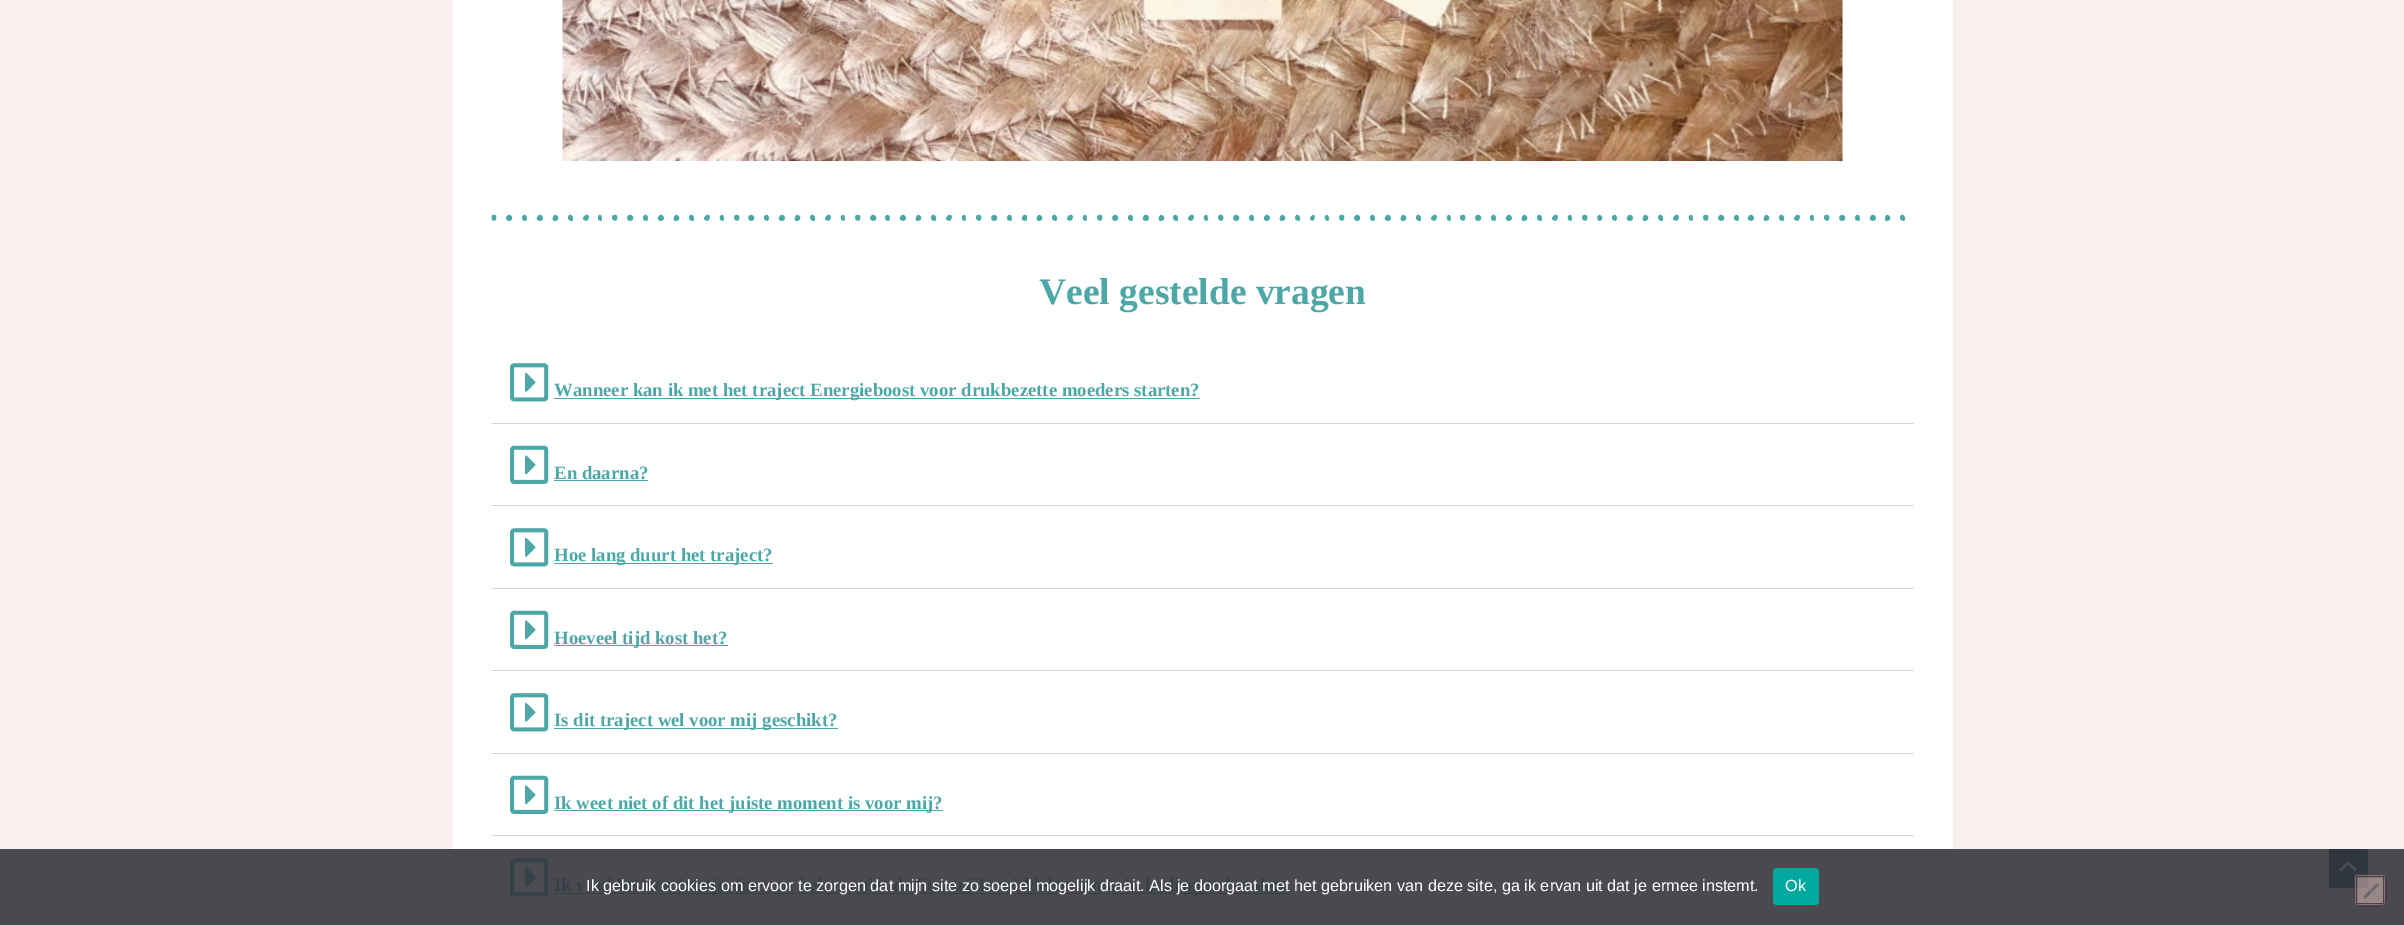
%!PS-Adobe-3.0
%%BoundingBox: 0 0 2404 925
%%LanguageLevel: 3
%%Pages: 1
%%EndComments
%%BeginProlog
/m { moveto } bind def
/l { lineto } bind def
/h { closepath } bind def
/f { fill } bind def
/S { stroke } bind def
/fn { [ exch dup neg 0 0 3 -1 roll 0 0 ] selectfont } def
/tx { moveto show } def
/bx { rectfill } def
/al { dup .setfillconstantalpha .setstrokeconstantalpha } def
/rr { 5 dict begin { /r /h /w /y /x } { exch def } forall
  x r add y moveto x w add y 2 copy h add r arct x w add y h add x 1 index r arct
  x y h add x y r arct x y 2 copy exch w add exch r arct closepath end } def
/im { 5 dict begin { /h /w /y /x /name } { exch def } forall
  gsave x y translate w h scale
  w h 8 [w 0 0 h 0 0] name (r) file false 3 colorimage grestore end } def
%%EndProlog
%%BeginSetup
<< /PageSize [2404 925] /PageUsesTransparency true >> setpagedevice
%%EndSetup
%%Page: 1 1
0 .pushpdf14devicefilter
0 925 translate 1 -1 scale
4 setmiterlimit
0.973 0.941 0.937 setrgbcolor
0 0 2404 925 bx
0.29 0.286 0.314 setrgbcolor
0 849 2404 76 bx
1 setgray
453 0 1500 849 bx
(image0.raw) 562 0 1281 161 im
(image1.raw) 491 214 1415 7 im
/LiberationSerif-Bold 37.5 fn
0.302 0.655 0.655 setrgbcolor
(Veel gestelde vragen) 1039 304 tx
0.835 0.847 0.863 setrgbcolor
491 423 1423 1 bx
(image2.raw) 510 363 39 39 im
0.302 0.655 0.655 setrgbcolor
554 398 646 1 bx
/LiberationSerif-Bold 18.75 fn
(Wanneer kan ik met het traject Energieboost voor drukbezette moeders starten?) 554 396 tx
0.835 0.847 0.863 setrgbcolor
491 505 1423 1 bx
(image3.raw) 510 445 39 39 im
0.302 0.655 0.655 setrgbcolor
(En daarna?) 554 479 tx
554 480 94 1 bx
0.835 0.847 0.863 setrgbcolor
491 588 1423 1 bx
(image2.raw) 510 528 39 39 im
0.302 0.655 0.655 setrgbcolor
554 563 219 1 bx
(Hoe lang duurt het traject?) 554 561 tx
0.835 0.847 0.863 setrgbcolor
491 670 1423 1 bx
(image3.raw) 510 610 39 39 im
0.302 0.655 0.655 setrgbcolor
554 645 174 1 bx
(Hoeveel tijd kost het?) 554 644 tx
0.835 0.847 0.863 setrgbcolor
491 753 1423 1 bx
(image2.raw) 510 693 39 39 im
0.302 0.655 0.655 setrgbcolor
554 728 284 1 bx
(Is dit traject wel voor mij geschikt?) 554 726 tx
0.835 0.847 0.863 setrgbcolor
491 835 1423 1 bx
(image3.raw) 510 775 39 39 im
0.302 0.655 0.655 setrgbcolor
554 810 389 1 bx
(Ik weet niet of dit het juiste moment is voor mij?) 554 809 tx
0.275 0.275 0.302 setrgbcolor
491 918 1423 1 bx
(image4.raw) 510 858 39 39 im
0.208 0.251 0.278 setrgbcolor
554 893 735 1 bx
(Ik vind het een beetje duur en heb nu niet de financiële middelen om zo’n bedrag te betalen.) 554 891 tx
0.188 0.212 0.243 setrgbcolor
2329 849 39 39 2.5 rr f
0.29 0.29 0.318 setrgbcolor
2357 869.5 m 2348 861 l 2339.5 869.5 l 2341 871.5 l 2348 864.5 l 2355 871.5 l h f
/LiberationSans-Regular 16.25 fn
1 setgray
(Ik gebruik cookies om ervoor te zorgen dat mijn site zo soepel mogelijk draait. Als je doorgaat met het gebruiken van deze site, ga ik ervan uit dat je ermee instemt.) 586 891 tx
0 0.663 0.616 setrgbcolor
1773 868 46 37 4 rr f
1 setgray
(Ok) 1785 891 tx
0.5 al
0.922 0.769 0.769 setrgbcolor
2354 874 32 32 4 rr f
0 setgray
2354.5 874.5 31 31 3.5 rr S
2356.5 876.5 27 27 0.5 rr S
1 al
0.396 0.392 0.408 setrgbcolor
2377 883.5 m 2379 885 l 2365.5 898.5 l 2363.5 896.5 l h f
0.5 al
0.502 setgray
2363.5 885 m 2365.5 883.5 l 2379 896.5 l 2377 898.5 l h f
.poppdf14devicefilter showpage
%%EOF
